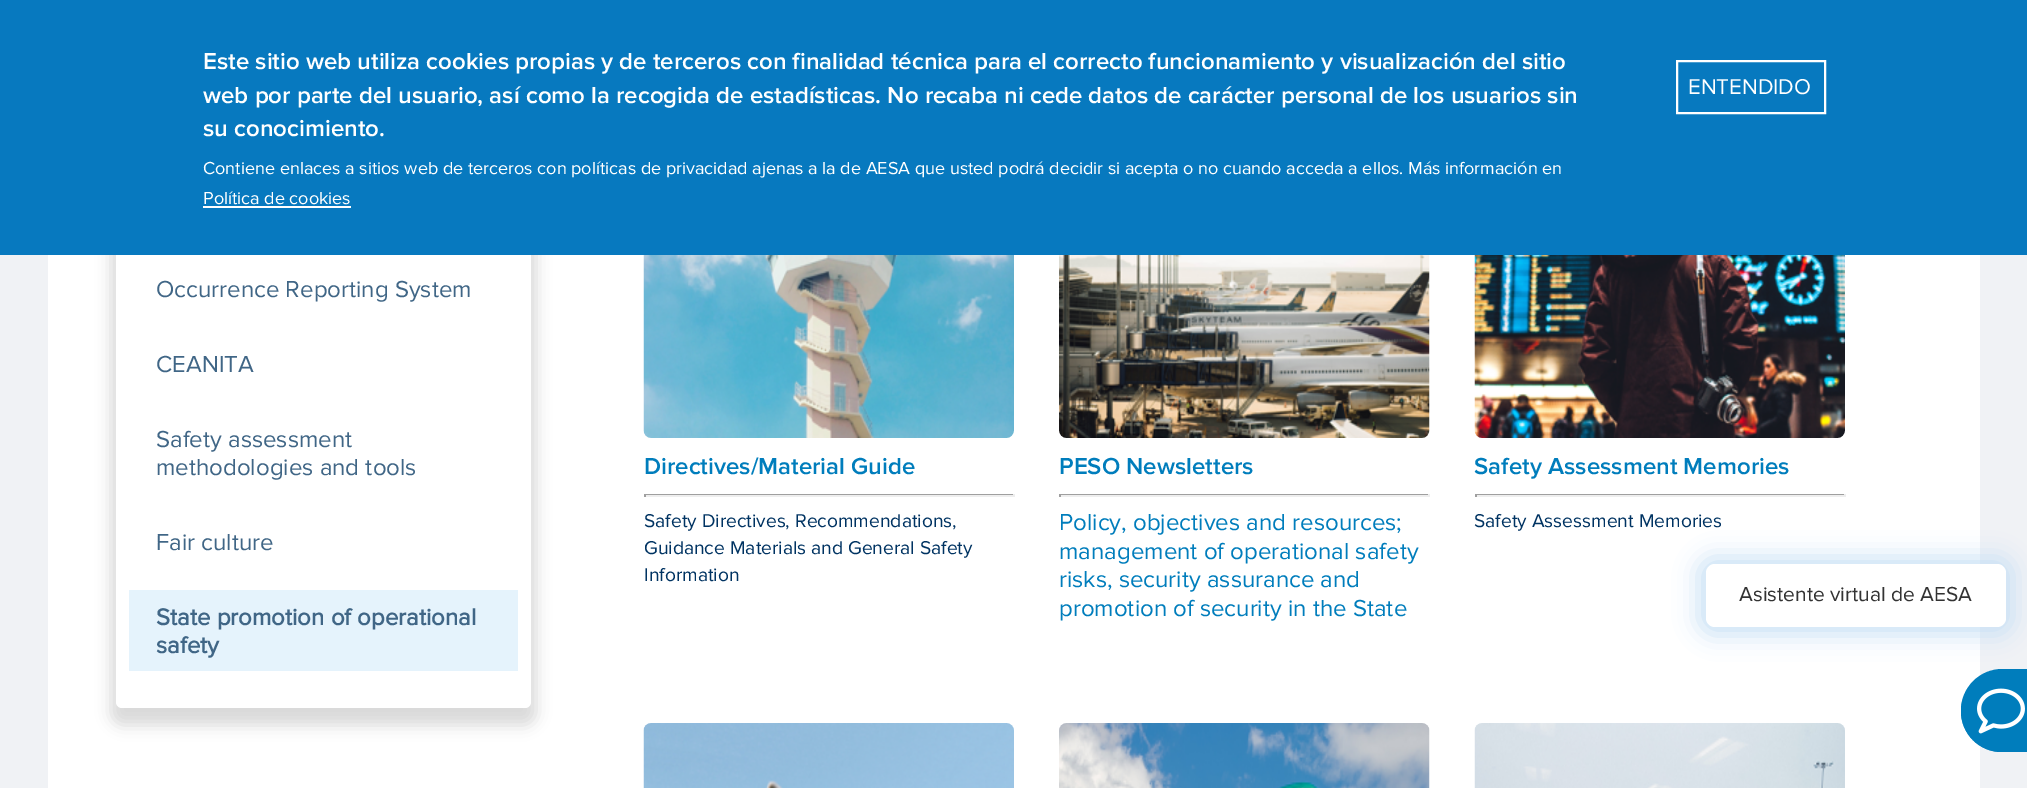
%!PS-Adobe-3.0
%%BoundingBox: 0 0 2027 788
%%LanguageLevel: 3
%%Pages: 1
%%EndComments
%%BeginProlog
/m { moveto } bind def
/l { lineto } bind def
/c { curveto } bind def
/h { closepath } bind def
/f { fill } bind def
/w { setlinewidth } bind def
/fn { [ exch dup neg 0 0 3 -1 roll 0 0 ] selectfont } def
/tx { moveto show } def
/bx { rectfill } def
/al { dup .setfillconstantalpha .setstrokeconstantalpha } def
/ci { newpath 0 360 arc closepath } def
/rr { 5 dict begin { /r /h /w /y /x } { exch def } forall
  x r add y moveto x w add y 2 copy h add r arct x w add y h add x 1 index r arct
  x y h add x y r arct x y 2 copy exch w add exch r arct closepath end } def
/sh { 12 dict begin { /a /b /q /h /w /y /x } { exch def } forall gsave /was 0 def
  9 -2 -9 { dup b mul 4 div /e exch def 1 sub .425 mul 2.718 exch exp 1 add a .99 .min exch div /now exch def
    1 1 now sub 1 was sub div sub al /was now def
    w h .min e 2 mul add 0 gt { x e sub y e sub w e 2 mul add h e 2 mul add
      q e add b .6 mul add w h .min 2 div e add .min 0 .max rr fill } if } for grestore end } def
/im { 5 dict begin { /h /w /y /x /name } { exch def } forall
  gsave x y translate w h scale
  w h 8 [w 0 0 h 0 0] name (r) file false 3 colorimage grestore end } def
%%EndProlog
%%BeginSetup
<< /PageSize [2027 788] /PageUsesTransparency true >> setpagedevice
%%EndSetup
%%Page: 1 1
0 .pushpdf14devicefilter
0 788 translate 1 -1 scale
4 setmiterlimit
0.941 0.949 0.961 setrgbcolor
0 0 2027 788 bx
1 setgray
48 255 1932 533 bx
0 setgray
111 15 425 710 11 7.5 0.15 sh
1 setgray
116 8 415 700 6 rr f
0.027 0.475 0.749 setrgbcolor
0 0 2027 255 bx
/ProximaNova-SemiBold 24 fn
1 setgray
(Este sitio web utiliza cookies propias y de terceros con finalidad técnica para el correcto funcionamiento y visualización del sitio) 203 69 tx
(web por parte del usuario, así como la recogida de estadísticas. No recaba ni cede datos de carácter personal de los usuarios sin) 203 103 tx
(su conocimiento.) 203 136 tx
/ProximaNova-Regular 18 fn
(Contiene enlaces a sitios web de terceros con políticas de privacidad ajenas a la de AESA que usted podrá decidir si acepta o no cuando acceda a ellos. Más información en) 203 174 tx
(Política de cookies) 203 204 tx
203 206 148 2 bx
2 w
1677 61 148 52 rectstroke
/ProximaNova-Regular 22.25 fn
(ENTENDIDO) 1688 94 tx
/ProximaNova-Regular 24 fn
0.251 0.4 0.525 setrgbcolor
(Occurrence Reporting System) 156 297 tx
(CEANITA) 156 372 tx
(Safety assessment) 156 447 tx
(methodologies and tools) 156 475 tx
(Fair culture) 156 550 tx
0.898 0.953 0.988 setrgbcolor
129 590 389 81 bx
/ProximaNova-Bold 24 fn
0.251 0.4 0.525 setrgbcolor
(State promotion of operational) 156 625 tx
(safety) 156 653 tx
(image0.raw) 643 255 371 183 im
/ProximaNova-SemiBold 24 fn
0 0.49 0.737 setrgbcolor
(Directives/Material Guide) 644 474 tx
0.624 setgray
644 494 370 1 bx
0.933 setgray
1013 494 2 3 bx
644 495 370 2 bx
0.624 setgray
644 494 2 3 bx
/ProximaNova-Regular 19.25 fn
0 0.2 0.384 setrgbcolor
(Safety Directives, Recommendations,) 644 527 tx
(Guidance Materials and General Safety) 644 554 tx
(Information) 644 581 tx
(image1.raw) 1059 255 371 183 im
/ProximaNova-SemiBold 24 fn
0 0.49 0.737 setrgbcolor
(PESO Newsletters) 1059 474 tx
0.624 setgray
1059 494 371 1 bx
0.933 setgray
1428 494 2 3 bx
1059 495 371 2 bx
0.624 setgray
1059 494 2 3 bx
/ProximaNova-Regular 24 fn
0 0.49 0.737 setrgbcolor
(Policy, objectives and resources;) 1059 530 tx
(management of operational safety) 1059 559 tx
(risks, security assurance and) 1059 587 tx
(promotion of security in the State) 1059 616 tx
(image2.raw) 1474 255 371 183 im
/ProximaNova-SemiBold 24 fn
(Safety Assessment Memories) 1474 474 tx
0.624 setgray
1475 494 370 1 bx
0.933 setgray
1844 494 2 3 bx
1475 495 370 2 bx
0.624 setgray
1475 494 2 3 bx
/ProximaNova-Regular 19.25 fn
0 0.2 0.384 setrgbcolor
(Safety Assessment Memories) 1474 527 tx
(image3.raw) 643 723 371 65 im
(image4.raw) 1059 723 371 65 im
(image5.raw) 1474 723 371 65 im
0 0.49 0.737 setrgbcolor
2002.5 669 m 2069 669 l 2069 752 l 2002.5 752 l 1979.5 752 1961 733.5 1961 710.5 c 1961 687.5 1979.5 669 2002.5 669 c h f
0.784 0.878 0.961 setrgbcolor
1698 557 315 78 15 12 1 sh
1 setgray
1706 564 300 63 9 rr f
/ProximaNova-Regular 21 fn
0.2 setgray
(Asistente virtual de AESA) 1739 601 tx
0 0.49 0.737 setrgbcolor
2001.5 711.5 40.5 ci f
(image6.raw) 1977 688 48 46 im
.poppdf14devicefilter showpage
%%EOF
